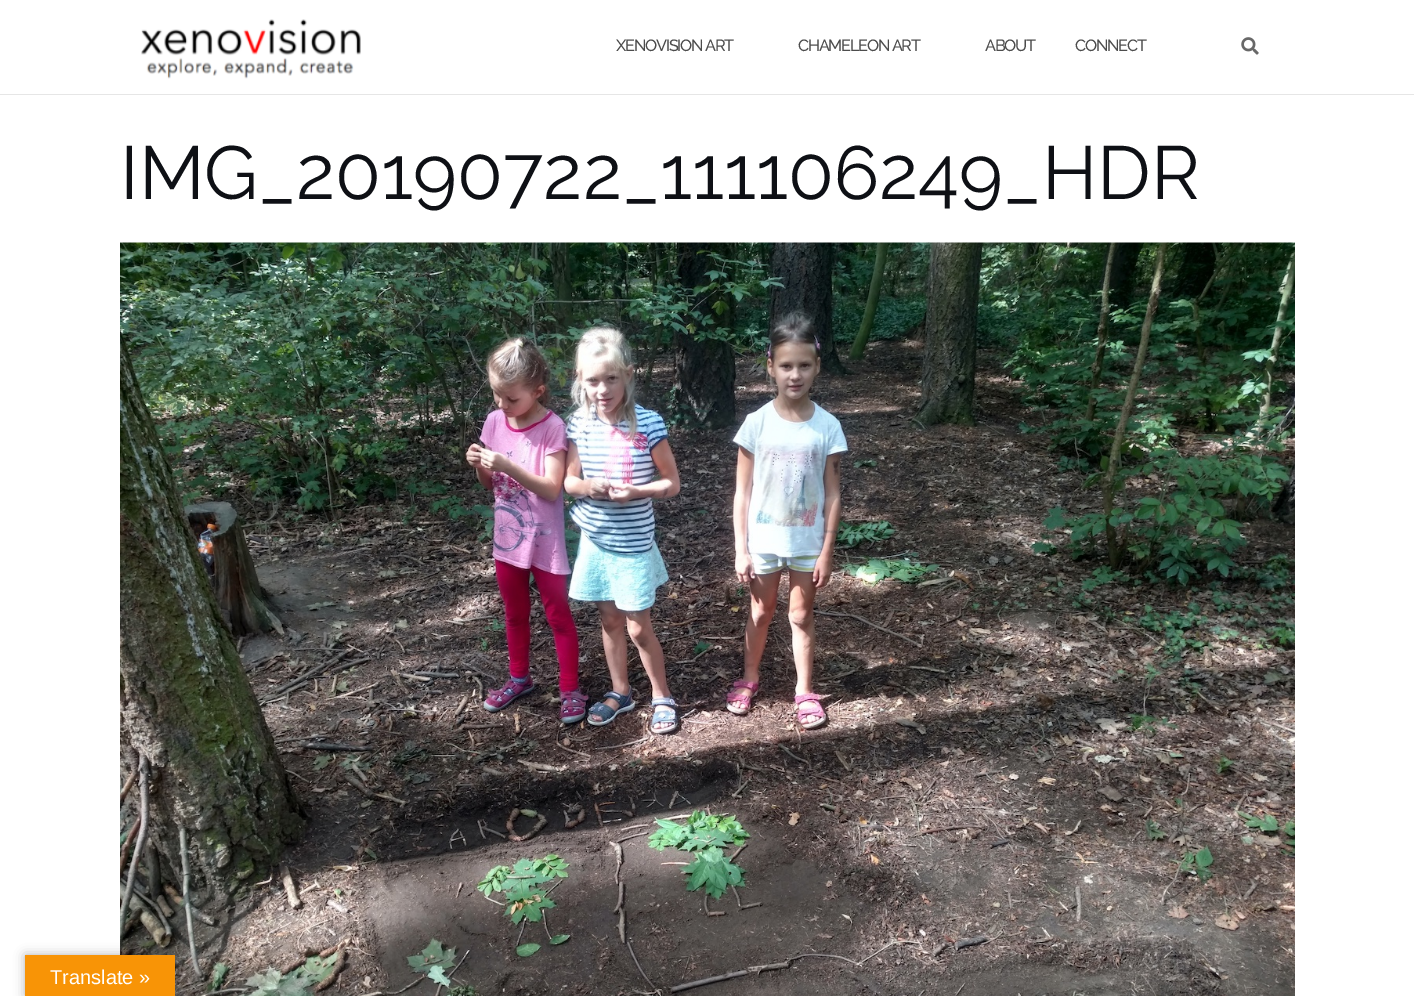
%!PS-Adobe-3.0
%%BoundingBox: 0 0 1414 996
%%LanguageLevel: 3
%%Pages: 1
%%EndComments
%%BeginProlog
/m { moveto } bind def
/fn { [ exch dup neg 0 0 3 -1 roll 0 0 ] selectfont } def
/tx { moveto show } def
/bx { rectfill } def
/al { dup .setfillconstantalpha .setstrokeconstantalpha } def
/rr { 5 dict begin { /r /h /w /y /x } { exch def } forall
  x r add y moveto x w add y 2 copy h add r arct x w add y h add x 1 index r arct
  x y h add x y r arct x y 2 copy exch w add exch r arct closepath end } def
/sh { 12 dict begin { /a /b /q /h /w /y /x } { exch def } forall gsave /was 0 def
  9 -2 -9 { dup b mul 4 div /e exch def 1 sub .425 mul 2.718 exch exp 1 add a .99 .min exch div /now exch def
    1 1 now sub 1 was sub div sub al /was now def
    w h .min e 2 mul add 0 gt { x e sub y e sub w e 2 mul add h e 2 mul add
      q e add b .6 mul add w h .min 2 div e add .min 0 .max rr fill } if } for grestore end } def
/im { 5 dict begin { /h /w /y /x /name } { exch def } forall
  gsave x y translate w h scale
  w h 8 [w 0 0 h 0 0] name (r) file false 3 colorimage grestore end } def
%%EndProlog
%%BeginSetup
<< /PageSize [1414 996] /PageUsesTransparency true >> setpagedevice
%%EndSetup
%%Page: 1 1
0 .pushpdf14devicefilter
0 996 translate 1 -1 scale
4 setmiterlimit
1 setgray
0 0 1414 996 bx
0.902 setgray
0 94 1414 1 bx
(image0.raw) 141 19 220 60 im
/Raleway-Medium 16.25 fn
0.298 setgray
616 51 m -1.25 0 (XENOVISION ART) ashow
798 51 m -1.25 0 (CHAMELEON ART) ashow
985 51 m -1.25 0 (ABOUT) ashow
1075 51 m -1.25 0 (CONNECT) ashow
(image1.raw) 1241 37 18 18 im
/Raleway-Regular 75 fn
0.055 0.063 0.082 setrgbcolor
(IMG_20190722_111106249_HDR) 120 199 tx
(image2.raw) 120 242 1175 754 im
0 setgray
25 955 150 41 0 5.5 0.3 sh
0.973 0.58 0.024 setrgbcolor
25 955 150 41 bx
/LiberationSans-Regular 20 fn
1 setgray
(Translate ») 50 984 tx
.poppdf14devicefilter showpage
%%EOF
